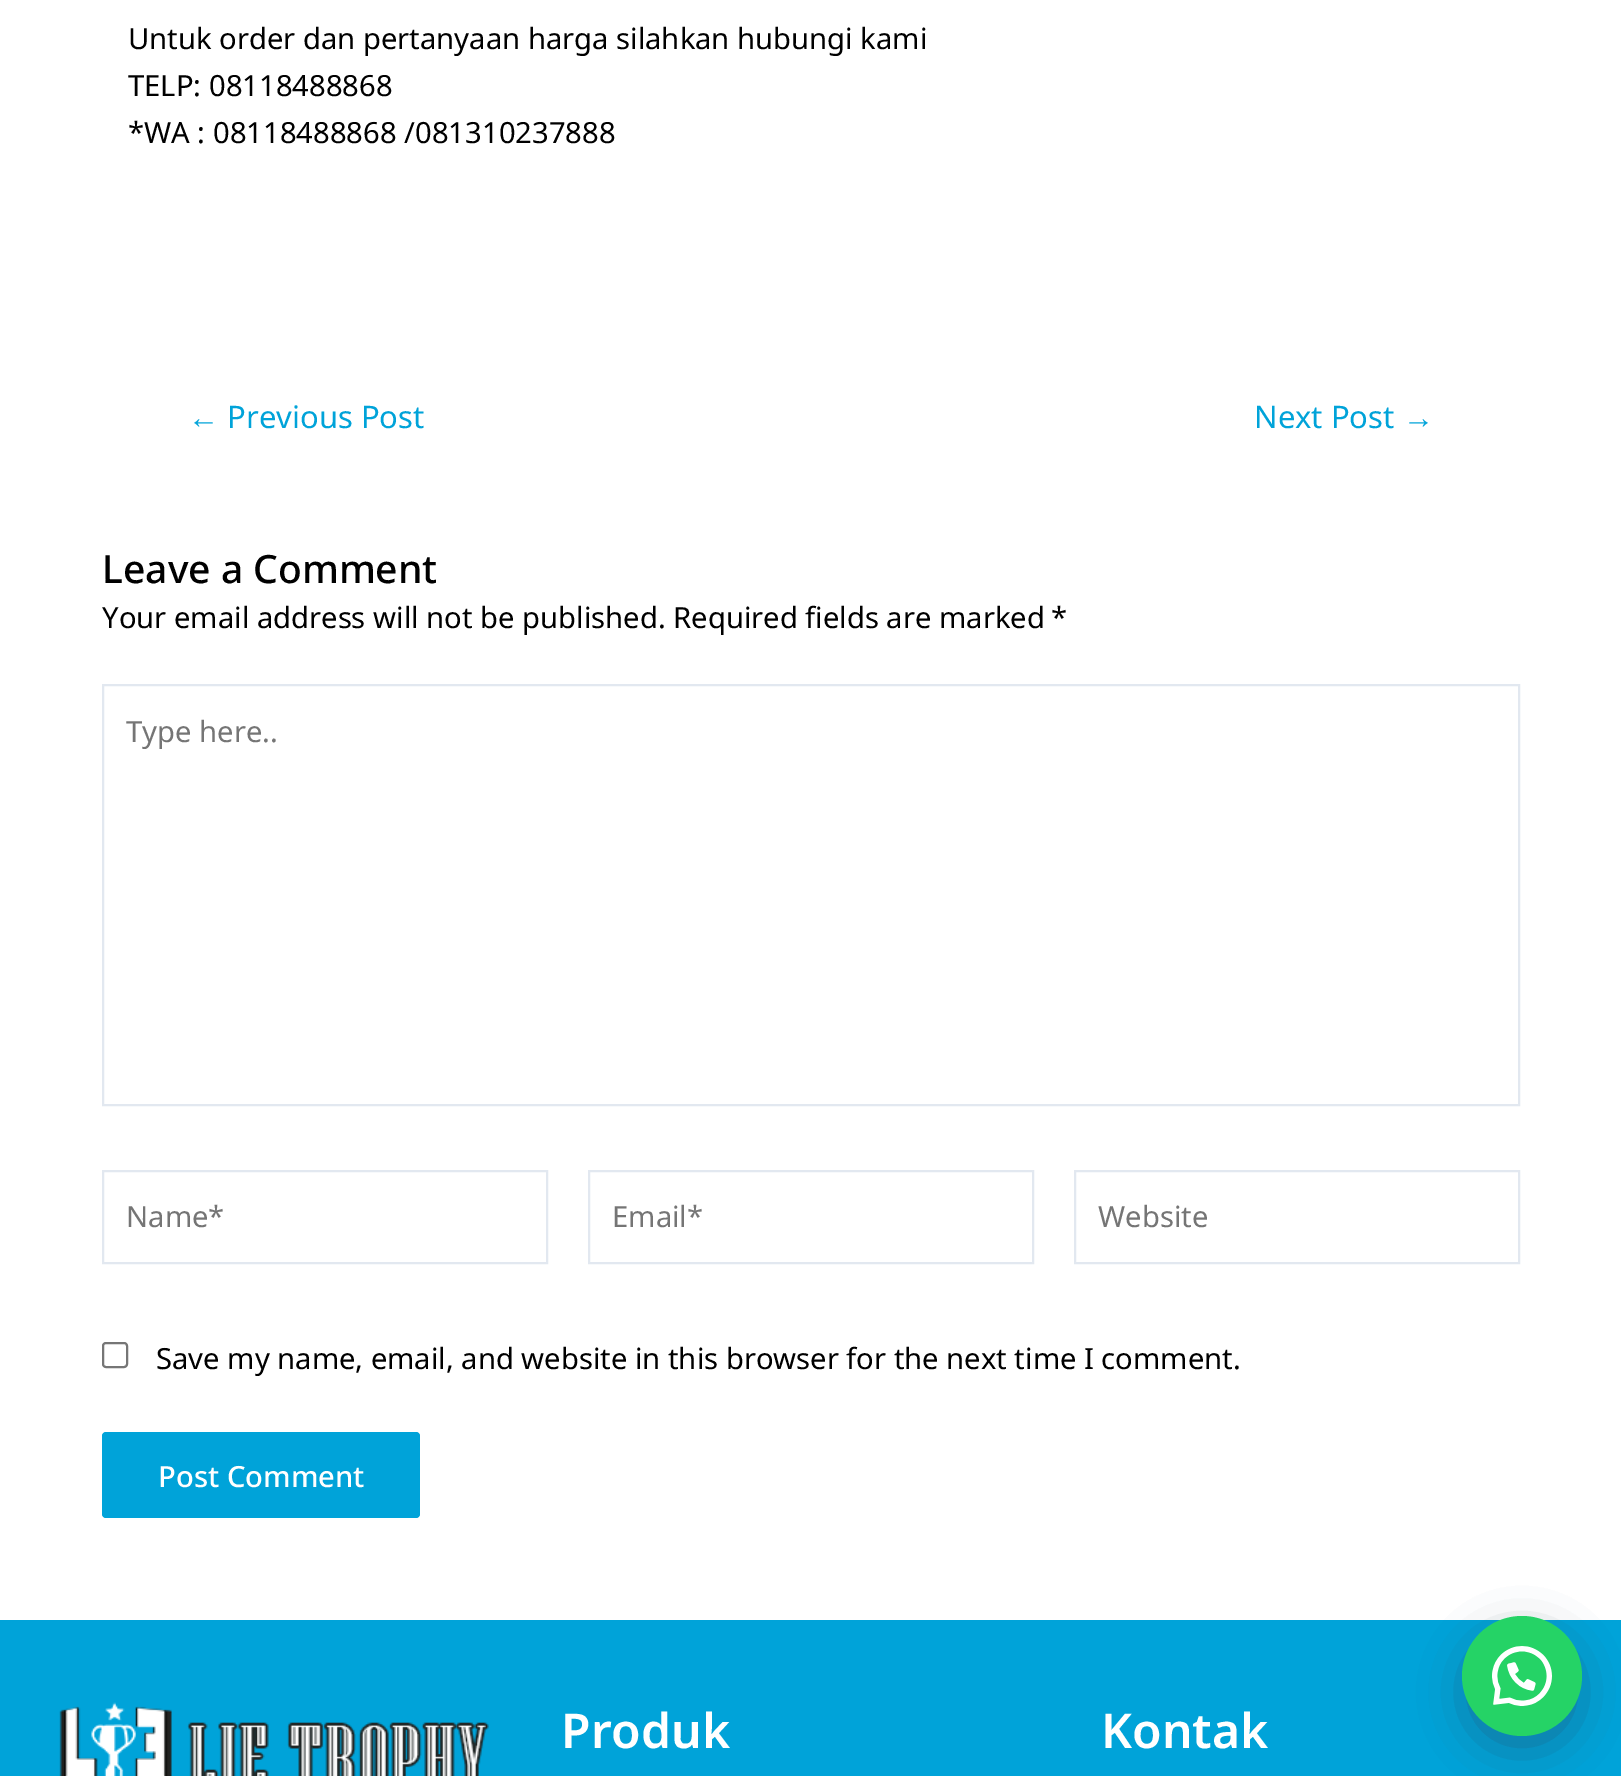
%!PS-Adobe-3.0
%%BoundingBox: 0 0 1621 1776
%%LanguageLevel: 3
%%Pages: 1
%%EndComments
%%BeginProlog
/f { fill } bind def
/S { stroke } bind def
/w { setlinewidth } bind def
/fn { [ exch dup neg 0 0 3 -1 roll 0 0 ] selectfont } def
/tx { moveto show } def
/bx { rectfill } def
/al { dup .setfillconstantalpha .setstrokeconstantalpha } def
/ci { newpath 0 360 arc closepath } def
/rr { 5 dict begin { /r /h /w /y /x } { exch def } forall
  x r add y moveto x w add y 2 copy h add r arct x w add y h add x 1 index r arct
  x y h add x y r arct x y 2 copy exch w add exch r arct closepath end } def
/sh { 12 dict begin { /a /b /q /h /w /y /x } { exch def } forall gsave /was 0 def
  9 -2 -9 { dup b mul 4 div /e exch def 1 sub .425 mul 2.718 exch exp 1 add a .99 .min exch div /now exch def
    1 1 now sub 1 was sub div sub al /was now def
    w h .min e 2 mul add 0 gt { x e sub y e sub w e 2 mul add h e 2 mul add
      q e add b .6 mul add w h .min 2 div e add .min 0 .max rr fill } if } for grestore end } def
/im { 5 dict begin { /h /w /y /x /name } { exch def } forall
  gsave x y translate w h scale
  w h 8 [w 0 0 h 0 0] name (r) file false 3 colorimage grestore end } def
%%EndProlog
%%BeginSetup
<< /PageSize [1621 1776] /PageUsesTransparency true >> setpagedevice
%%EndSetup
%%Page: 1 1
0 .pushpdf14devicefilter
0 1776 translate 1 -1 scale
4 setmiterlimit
1 setgray
0 0 1621 1776 bx
/NotoSans-Regular 29.2 fn
0 setgray
(Untuk order dan pertanyaan harga silahkan hubungi kami) 128 49 tx
(TELP: 08118488868) 128 96 tx
(*WA : 08118488868 /081310237888) 128 143 tx
/LiberationSans-Regular 31 fn
0 0.639 0.851 setrgbcolor
(←) 188 428 tx
/NotoSans-Regular 31 fn
(Previous Post) 227 428 tx
(Next Post) 1254 428 tx
/LiberationSans-Regular 31 fn
(→) 1403 428 tx
/NotoSans-Medium 39 fn
0 setgray
(Leave a Comment) 102 583 tx
/NotoSans-Regular 29.2 fn
(Your email address will not be published.) 102 628 tx
(Required fields are marked) 673 628 tx
(*) 1051 628 tx
0.886 0.91 0.941 setrgbcolor
2 w
103 685 1416 420 rectstroke
0.459 setgray
(Type here..) 126 742 tx
0.886 0.91 0.941 setrgbcolor
103 1171 444 92 rectstroke
0.459 setgray
(Name*) 126 1227 tx
0.886 0.91 0.941 setrgbcolor
589 1171 444 92 rectstroke
0.459 setgray
(Email*) 612 1227 tx
0.886 0.91 0.941 setrgbcolor
1075 1171 444 92 rectstroke
0.459 setgray
(Website) 1098 1227 tx
0.463 setgray
103 1343 24 24 3 rr S
0 setgray
(Save my name, email, and website in this browser for the next time I comment.) 156 1369 tx
0 0.639 0.851 setrgbcolor
102 1432 318 86 4 rr f
/NotoSans-Medium 29.2 fn
1 setgray
(Post Comment) 158 1487 tx
0 0.639 0.851 setrgbcolor
0 1620 1621 156 bx
(image0.raw) 59 1702 430 74 im
/NotoSans-SemiBold 48 fn
1 setgray
(Produk) 561 1748 tx
(Kontak) 1101 1748 tx
0.176 0.243 0.31 setrgbcolor
1472 1642 100 100 50 25 0.3 sh
1472 1642 100 100 50 25 0.3 sh
0.145 0.827 0.4 setrgbcolor
1522 1676 60 ci f
(image1.raw) 1492 1646 60 60 im
.poppdf14devicefilter showpage
%%EOF
